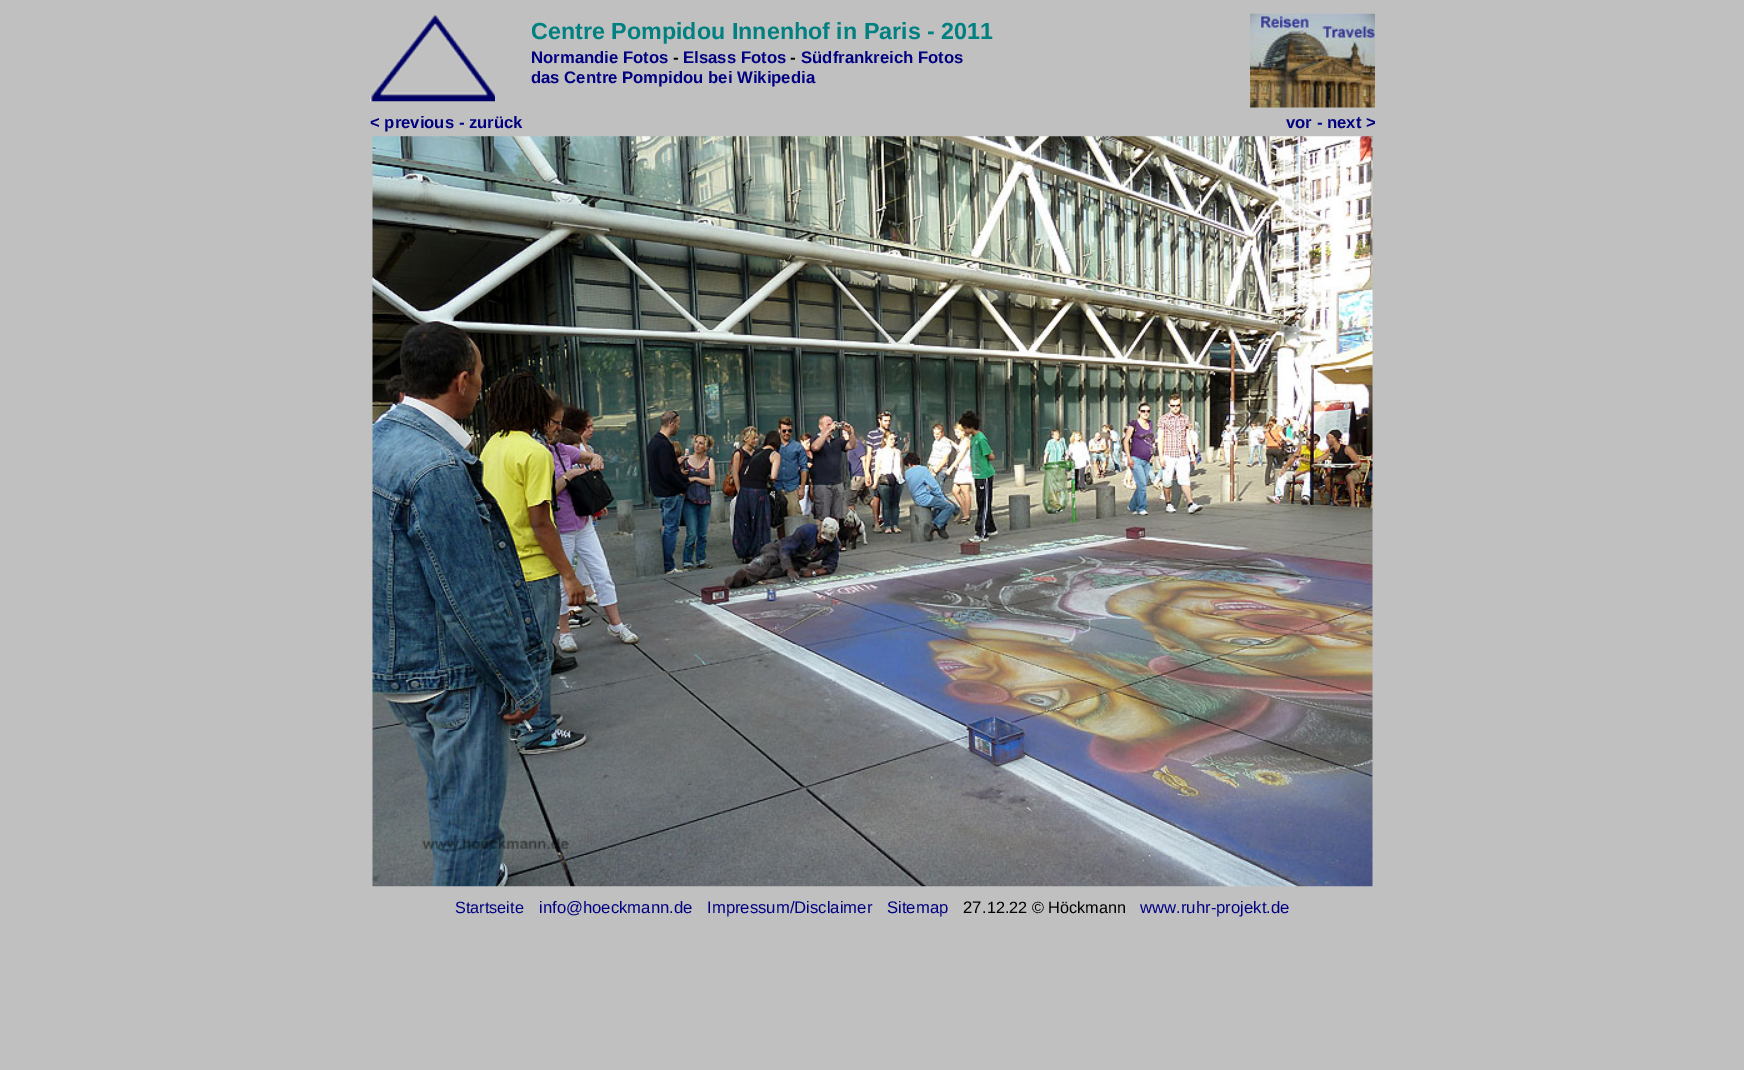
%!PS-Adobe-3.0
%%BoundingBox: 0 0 1744 1070
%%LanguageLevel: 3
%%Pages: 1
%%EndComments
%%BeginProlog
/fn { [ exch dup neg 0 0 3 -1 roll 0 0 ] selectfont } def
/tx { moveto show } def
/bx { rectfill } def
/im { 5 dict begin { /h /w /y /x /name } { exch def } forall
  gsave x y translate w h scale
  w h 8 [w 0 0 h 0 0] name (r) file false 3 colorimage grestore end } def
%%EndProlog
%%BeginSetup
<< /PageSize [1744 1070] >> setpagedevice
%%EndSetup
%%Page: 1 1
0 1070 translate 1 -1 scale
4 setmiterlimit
0.753 setgray
0 0 1744 1070 bx
(image0.raw) 370 15 125 87 im
/LiberationSans-Bold 23.3 fn
0 0.502 0.502 setrgbcolor
(Centre Pompidou Innenhof in Paris - 2011) 531 39 tx
/LiberationSans-Bold 16.7 fn
0 0 0.502 setrgbcolor
(Normandie Fotos) 531 63 tx
0 setgray
(-) 673 63 tx
0 0 0.502 setrgbcolor
(Elsass Fotos) 683 63 tx
0 setgray
(-) 790 63 tx
0 0 0.502 setrgbcolor
(Südfrankreich Fotos) 801 63 tx
(das Centre Pompidou bei Wikipedia) 531 83 tx
(image1.raw) 1250 13 125 95 im
(< previous - zurück) 370 128 tx
(vor - next >) 1286 128 tx
(image2.raw) 372 136 1001 751 im
/LiberationSans-Regular 16.25 fn
(Startseite) 455 913 tx
/LiberationSans-Regular 16.7 fn
(info@hoeckmann.de) 539 913 tx
(Impressum/Disclaimer) 707 913 tx
(Sitemap) 887 913 tx
0 setgray
(27) 963 913 tx
/LiberationSans-Regular 16.25 fn
(.12.22 © Höckmann) 982 913 tx
/LiberationSans-Regular 16.7 fn
0 0 0.502 setrgbcolor
(www.ruhr-projekt.de) 1140 913 tx
showpage
%%EOF
